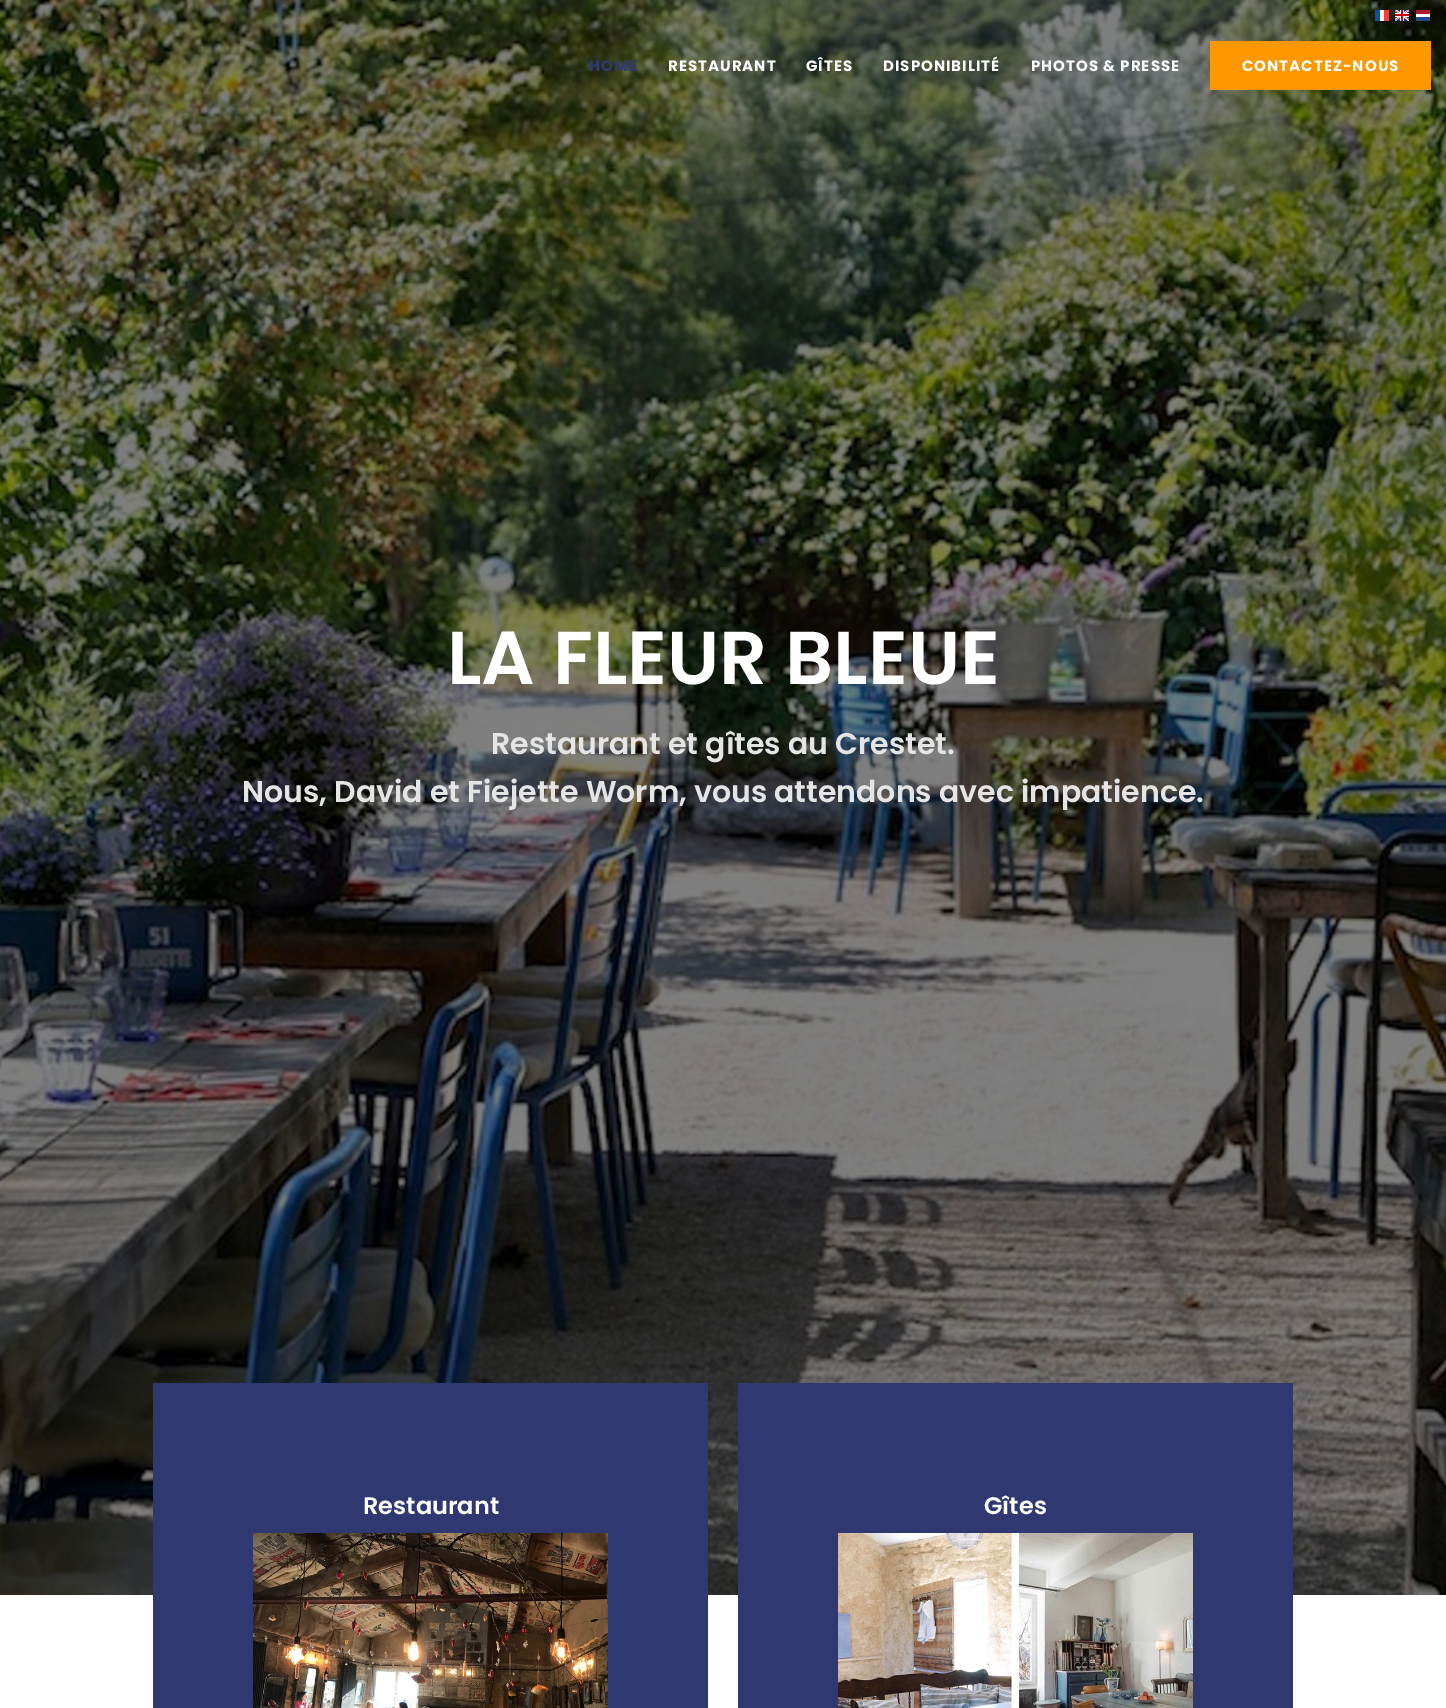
%!PS-Adobe-3.0
%%BoundingBox: 0 0 1446 1708
%%LanguageLevel: 3
%%Pages: 1
%%EndComments
%%BeginProlog
/m { moveto } bind def
/fn { [ exch dup neg 0 0 3 -1 roll 0 0 ] selectfont } def
/tx { moveto show } def
/bx { rectfill } def
/im { 5 dict begin { /h /w /y /x /name } { exch def } forall
  gsave x y translate w h scale
  w h 8 [w 0 0 h 0 0] name (r) file false 3 colorimage grestore end } def
%%EndProlog
%%BeginSetup
<< /PageSize [1446 1708] >> setpagedevice
%%EndSetup
%%Page: 1 1
0 1708 translate 1 -1 scale
4 setmiterlimit
1 setgray
0 0 1446 1708 bx
(image3.raw) 0 0 1446 1595 im
(image0.raw) 1375 10 14 11 im
(image1.raw) 1395 10 14 11 im
(image2.raw) 1416 10 14 11 im
/Poppins-Bold 15 fn
0.184 0.22 0.451 setrgbcolor
589 71 m 1 0 (HOME) ashow
1 setgray
668 71 m 1 0 (RESTAURANT) ashow
806 71 m 1 0 (GÎTES) ashow
883 71 m 1 0 (DISPONIBILITÉ) ashow
1031 71 m 1 0 (PHOTOS & PRESSE) ashow
1 0.596 0 setrgbcolor
1210 41 221 49 bx
1 setgray
1242 71 m 1 0 (CONTACTEZ-NOUS) ashow
/Poppins-SemiBold 75 fn
(LA FLEUR BLEUE) 447 684 tx
/Poppins-SemiBold 30 fn
0.898 setgray
(Restaurant et gîtes au Crestet.) 491 754 tx
(Nous, David et Fiejette Worm, vous attendons avec impatience.) 242 802 tx
0.188 0.22 0.447 setrgbcolor
153 1383 555 325 bx
/Poppins-SemiBold 24 fn
1 setgray
(Restaurant) 363 1514 tx
(image4.raw) 253 1533 355 175 im
0.188 0.22 0.447 setrgbcolor
738 1383 555 325 bx
1 setgray
(Gîtes) 984 1514 tx
(image5.raw) 838 1533 355 175 im
showpage
%%EOF
